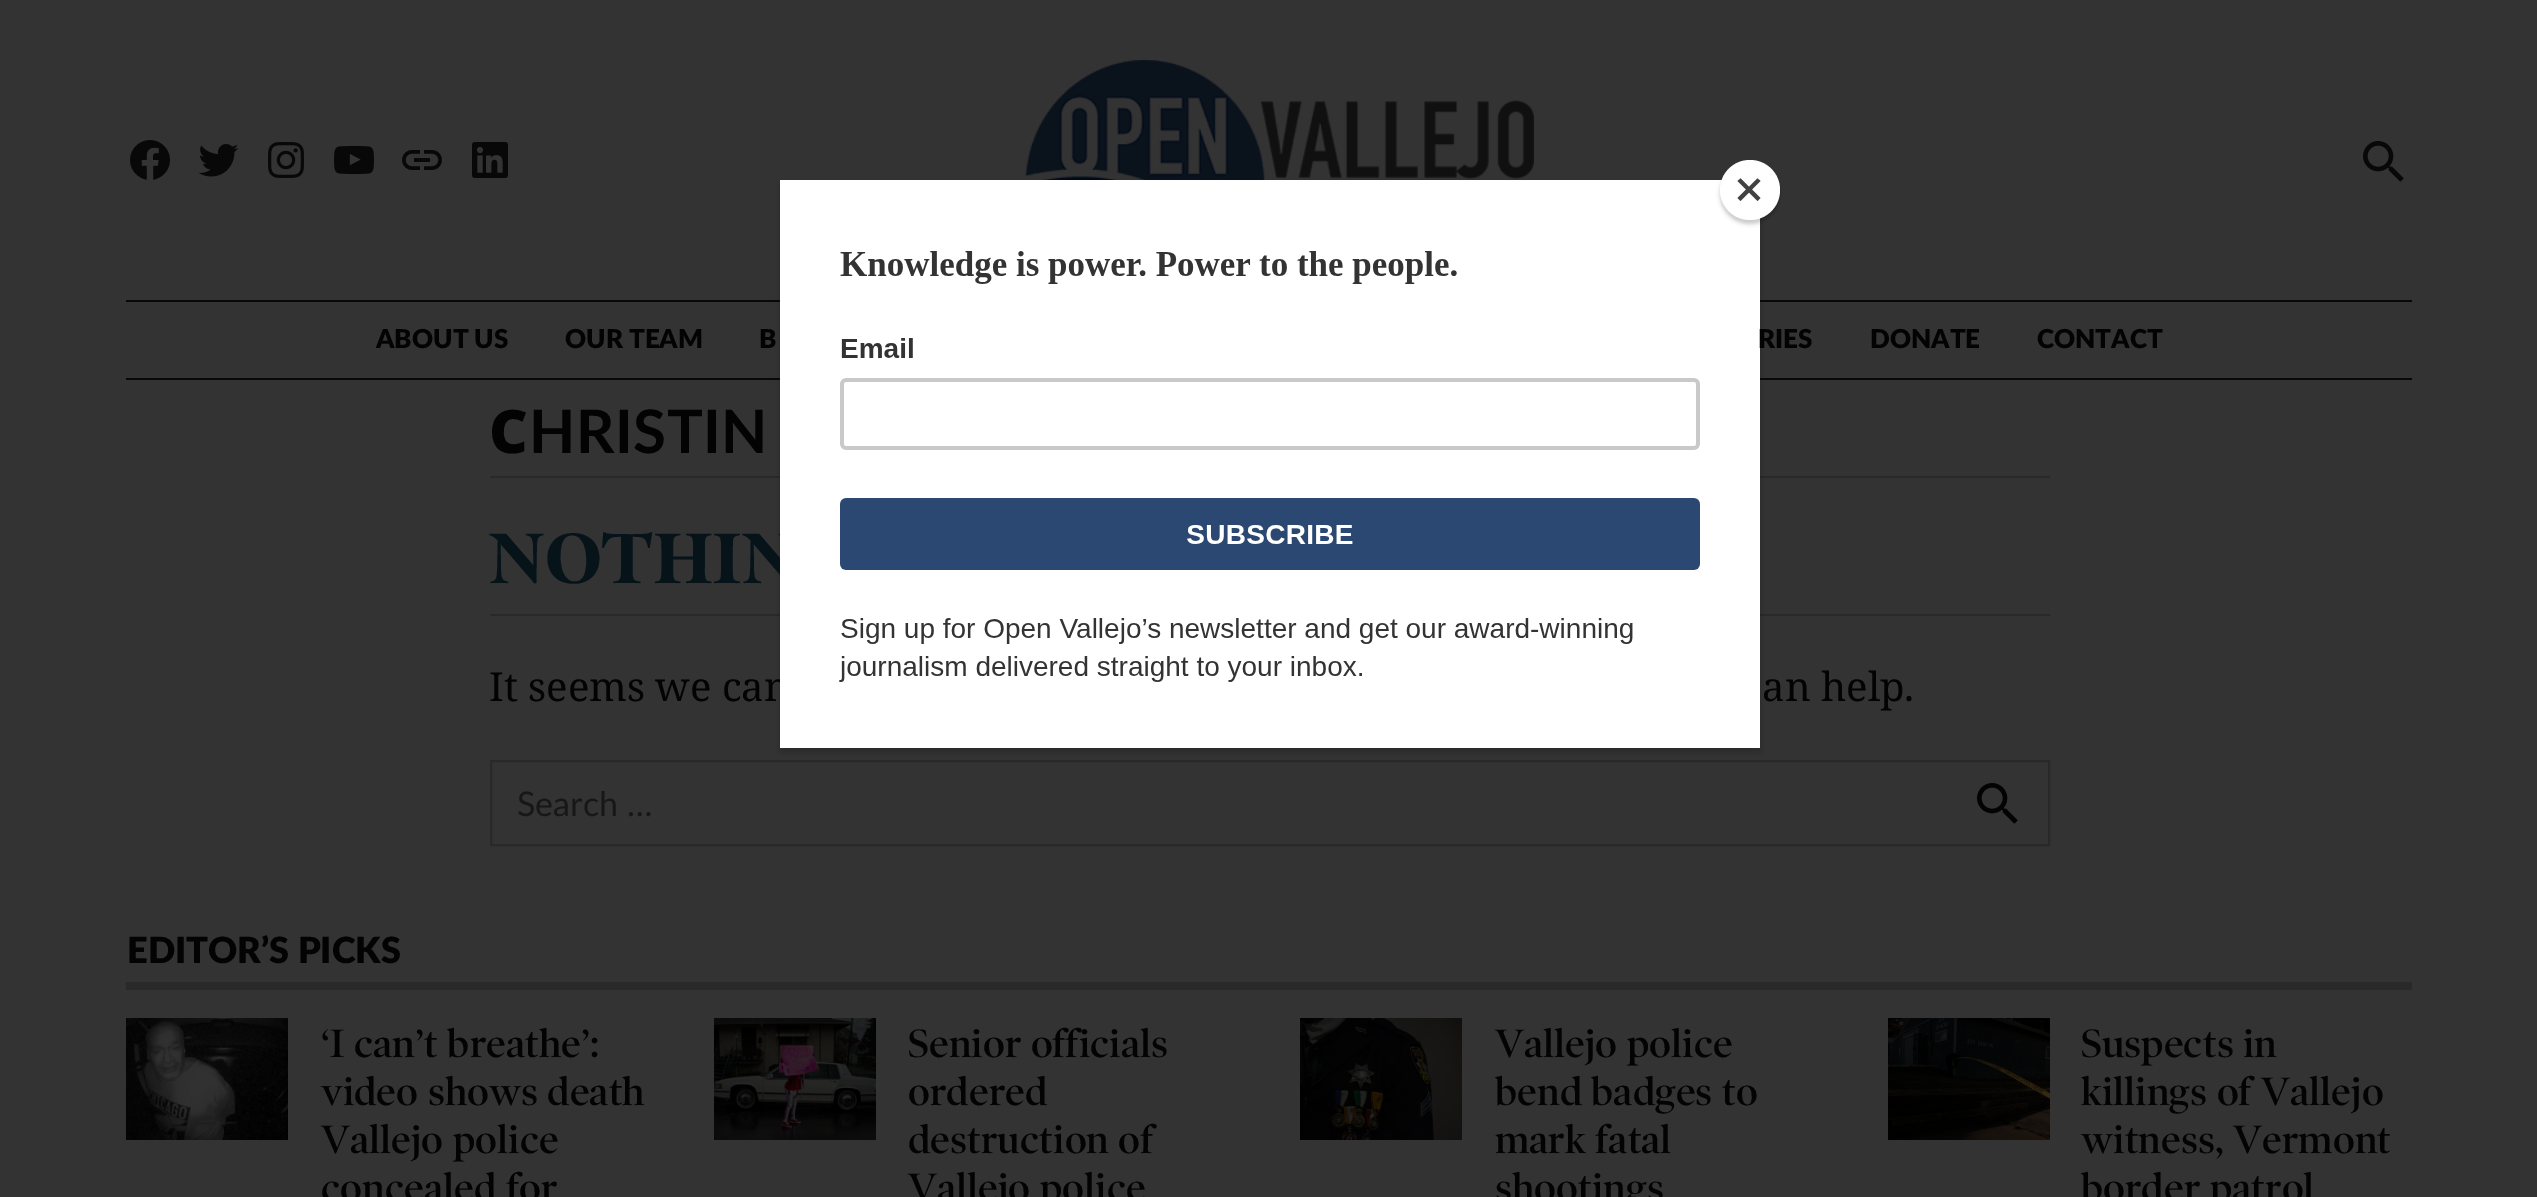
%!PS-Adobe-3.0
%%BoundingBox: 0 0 2537 1197
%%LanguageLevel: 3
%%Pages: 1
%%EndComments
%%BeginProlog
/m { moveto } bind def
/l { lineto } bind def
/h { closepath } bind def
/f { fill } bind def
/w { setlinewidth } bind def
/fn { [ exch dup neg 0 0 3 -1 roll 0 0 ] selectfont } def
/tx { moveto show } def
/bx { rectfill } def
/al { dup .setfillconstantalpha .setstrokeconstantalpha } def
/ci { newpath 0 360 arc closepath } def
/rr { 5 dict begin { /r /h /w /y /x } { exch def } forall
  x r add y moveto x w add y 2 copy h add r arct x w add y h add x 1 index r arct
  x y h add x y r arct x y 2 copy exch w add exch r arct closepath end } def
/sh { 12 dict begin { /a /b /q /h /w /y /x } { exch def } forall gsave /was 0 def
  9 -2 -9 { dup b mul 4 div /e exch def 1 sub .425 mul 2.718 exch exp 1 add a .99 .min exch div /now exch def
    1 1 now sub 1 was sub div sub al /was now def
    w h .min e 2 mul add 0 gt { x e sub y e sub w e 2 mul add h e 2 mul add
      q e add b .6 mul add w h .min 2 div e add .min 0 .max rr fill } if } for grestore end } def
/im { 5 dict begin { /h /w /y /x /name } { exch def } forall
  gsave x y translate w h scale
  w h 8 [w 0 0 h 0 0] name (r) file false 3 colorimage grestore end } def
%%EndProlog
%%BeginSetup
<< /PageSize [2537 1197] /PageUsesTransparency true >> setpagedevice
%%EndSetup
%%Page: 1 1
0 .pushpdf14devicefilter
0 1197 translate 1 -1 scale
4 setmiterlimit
0.2 setgray
0 0 2537 1197 bx
(image7.raw) 1025 60 509 120 im
0.031 setgray
126 300 2286 2 bx
126 378 2286 2 bx
0.161 setgray
490 476 1560 2 bx
490 614 1560 2 bx
2 w
491 761 1558 84 rectstroke
0 setgray
780 184 980 568 0 4 0.2 sh
/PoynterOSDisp-Bold 72 fn
0.024 0.078 0.098 setrgbcolor
489 583 m 0.75 0 (NOTHIN) ashow
/NotoSerif-Regular 40 fn
0.012 setgray
(It seems we can) 489 701 tx
(image0.raw) 780 180 980 568 im
0 setgray
1720 164 60 60 30 2 0.2 sh
1 setgray
1750 190 30 ci f
0.255 setgray
1757.5 178.5 m 1760.5 181 l 1740.5 201 l 1737.5 198 l h f
1737.5 181 m 1740.5 178.5 l 1760.5 198 l 1757.5 201 l h f
(image1.raw) 130 140 40 40 im
(image2.raw) 198 144 41 33 im
(image3.raw) 268 142 36 36 im
(image4.raw) 334 145 40 30 im
(image5.raw) 402 150 40 20 im
(image6.raw) 472 142 36 36 im
(image8.raw) 2363 141 41 41 im
/Lato-Black 26 fn
0.012 setgray
(ABOUT US) 376 348 tx
(OUR TEAM) 565 348 tx
(B) 759 348 tx
(RIES) 1758 348 tx
(DONATE) 1870 348 tx
(CONTACT) 2037 348 tx
/NotoSans-Black 60 fn
489 453 m 0.5 0 (C) ashow
/Lato-Bold 60 fn
529 453 m 0.5 0 (HRISTIN) ashow
/NotoSerif-Regular 40 fn
(an help.) 1762 701 tx
/Lato-Regular 34 fn
0.09 setgray
(Search …) 517 816 tx
(image9.raw) 1977 783 41 41 im
0.161 setgray
126 982 2286 8 bx
/Lato-Black 36 fn
0.012 setgray
(EDITOR’S PICKS) 127 963 tx
(image10.raw) 126 1018 162 122 im
/PoynterOSDisp-SemiBold 40 fn
(‘I can’t breathe’:) 321 1057 tx
(video shows death) 321 1105 tx
(Vallejo police) 321 1153 tx
(concealed for) 321 1201 tx
(image11.raw) 714 1018 162 122 im
(Senior officials) 908 1057 tx
(ordered) 908 1105 tx
(destruction of) 908 1153 tx
(Vallejo police) 908 1201 tx
(image12.raw) 1300 1018 162 122 im
(Vallejo police) 1495 1057 tx
(bend badges to) 1495 1105 tx
(mark fatal) 1495 1153 tx
(shootings) 1495 1201 tx
(image13.raw) 1888 1018 162 122 im
(Suspects in) 2081 1057 tx
(killings of Vallejo) 2081 1105 tx
(witness, Vermont) 2081 1153 tx
(border patrol) 2081 1201 tx
.poppdf14devicefilter showpage
%%EOF
